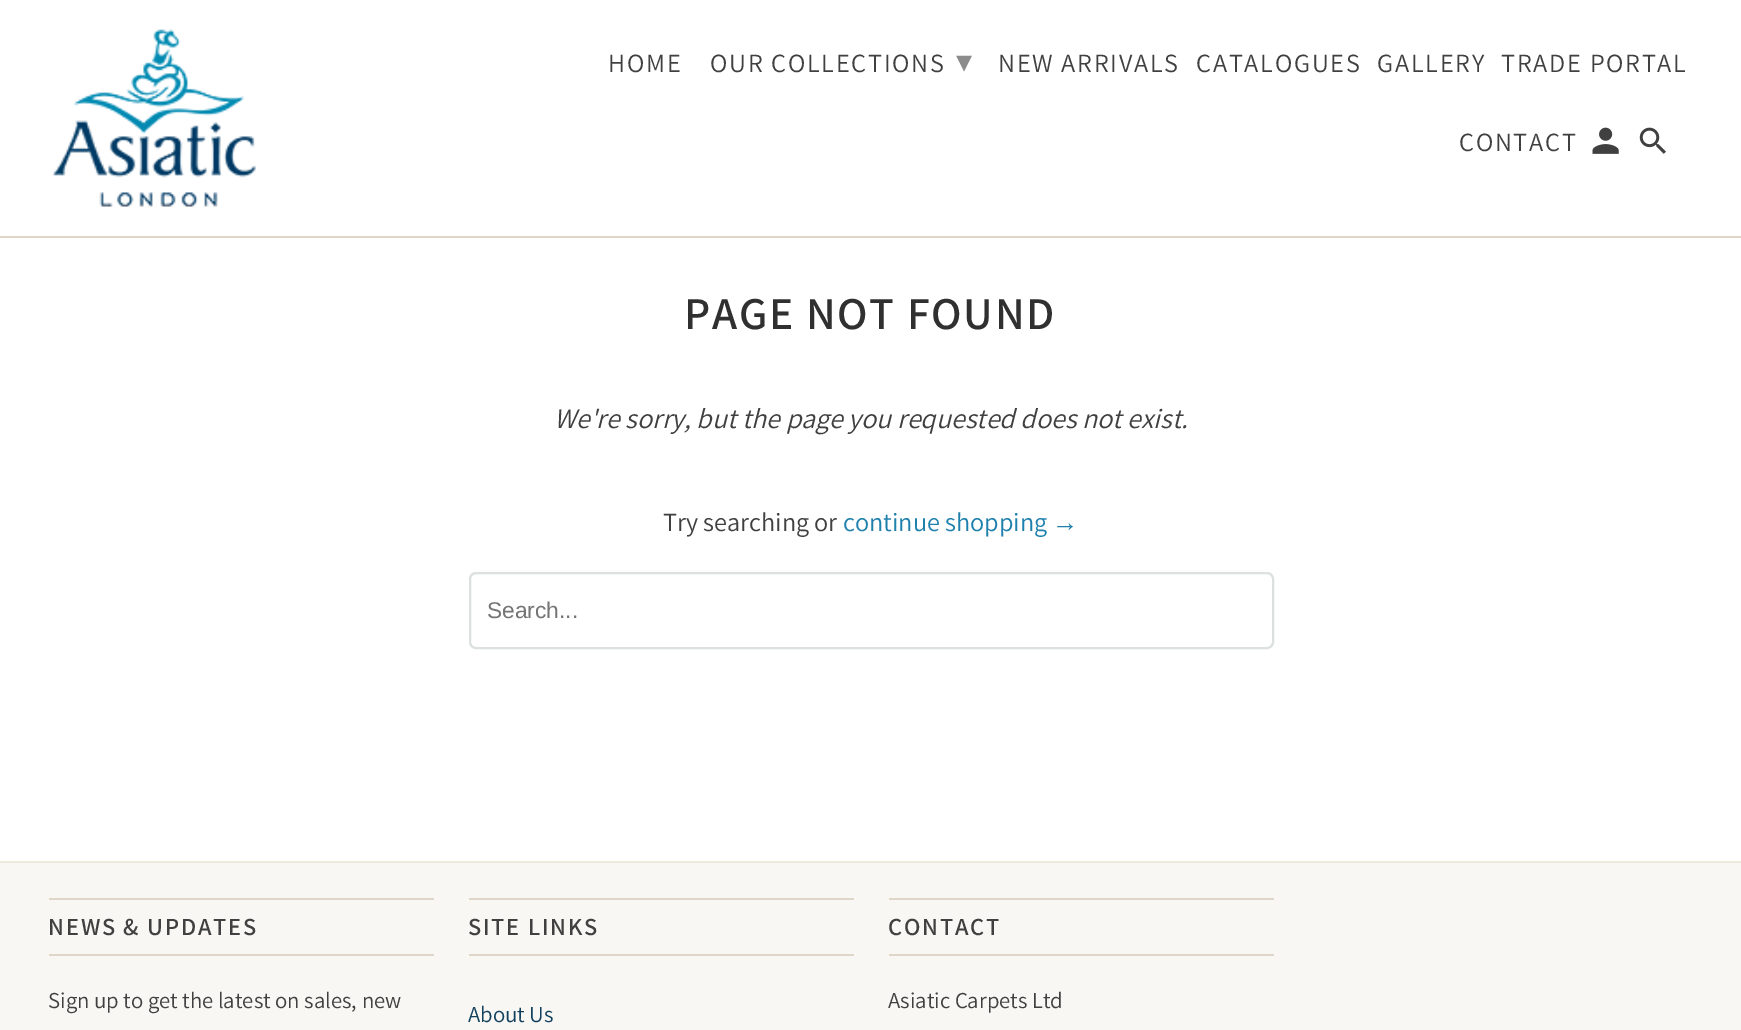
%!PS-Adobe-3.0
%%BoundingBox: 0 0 1741 1030
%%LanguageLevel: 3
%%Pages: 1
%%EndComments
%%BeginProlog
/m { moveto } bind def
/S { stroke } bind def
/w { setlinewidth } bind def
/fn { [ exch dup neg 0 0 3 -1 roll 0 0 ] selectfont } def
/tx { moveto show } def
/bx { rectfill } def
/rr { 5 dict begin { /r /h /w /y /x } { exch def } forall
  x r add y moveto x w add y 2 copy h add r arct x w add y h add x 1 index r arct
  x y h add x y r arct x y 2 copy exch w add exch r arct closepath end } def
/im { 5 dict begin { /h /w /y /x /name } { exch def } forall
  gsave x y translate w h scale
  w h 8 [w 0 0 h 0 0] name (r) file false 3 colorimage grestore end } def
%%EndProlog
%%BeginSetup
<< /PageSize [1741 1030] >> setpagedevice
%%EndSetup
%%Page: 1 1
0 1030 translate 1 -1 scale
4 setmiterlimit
1 setgray
0 0 1741 1030 bx
0.871 0.839 0.78 setrgbcolor
0 236 1741 2 bx
(image0.raw) 52 29 204 178 im
/Assistant-Regular 26.25 fn
0.251 setgray
608 72 m 1.75 0 (HOME) ashow
710 72 m 1.75 0 (OUR COLLECTIONS) ashow
/DejaVuSans-Regular 32 fn
0.549 setgray
956 72 m 1.75 0 (▾) ashow
/Assistant-Regular 26.25 fn
0.251 setgray
998 72 m 1.75 0 (NEW ARRIVALS) ashow
1196 72 m 1.75 0 (CATALOGUES) ashow
1377 72 m 1.75 0 (GALLERY) ashow
1501 72 m 1.75 0 (TRADE PORTAL) ashow
1459 151 m 1.75 0 (CONTACT) ashow
(image1.raw) 1592 127 27 27 im
(image2.raw) 1639 127 27 27 im
/Assistant-SemiBold 45.5 fn
0.188 setgray
684 329 m 1.75 0 (PAGE NOT FOUND) ashow
/Assistant-Italic 28 fn
0.251 setgray
(We're sorry, but the page you requested does not exist.) 554 428 tx
/Assistant-Regular 26.25 fn
(Try searching or) 663 531 tx
0.118 0.502 0.675 setrgbcolor
(continue shopping) 843 531 tx
/LiberationSans-Regular 26.25 fn
(→) 1052 531 tx
0.863 0.878 0.878 setrgbcolor
2 w
470 573 803 75 6 rr S
/LiberationSans-Regular 22.75 fn
0.459 setgray
(Search...) 487 618 tx
0.976 0.969 0.953 setrgbcolor
0 863 1741 167 bx
0.929 0.914 0.867 setrgbcolor
0 861 1741 2 bx
0.871 0.839 0.78 setrgbcolor
49 898 385 2 bx
49 954 385 2 bx
/Assistant-SemiBold 24.5 fn
0.251 setgray
48 935 m 1.75 0 (NEWS & UPDATES) ashow
/Assistant-Regular 22.75 fn
(Sign up to get the latest on sales, new) 48 1008 tx
0.871 0.839 0.78 setrgbcolor
469 898 385 2 bx
469 954 385 2 bx
/Assistant-SemiBold 24.5 fn
0.251 setgray
468 935 m 1.75 0 (SITE LINKS) ashow
/Assistant-Regular 22.75 fn
0.071 0.255 0.369 setrgbcolor
(About Us) 468 1022 tx
0.871 0.839 0.78 setrgbcolor
889 898 385 2 bx
889 954 385 2 bx
/Assistant-SemiBold 24.5 fn
0.251 setgray
888 935 m 1.75 0 (CONTACT) ashow
/Assistant-Regular 22.75 fn
(Asiatic Carpets Ltd) 888 1008 tx
showpage
%%EOF
